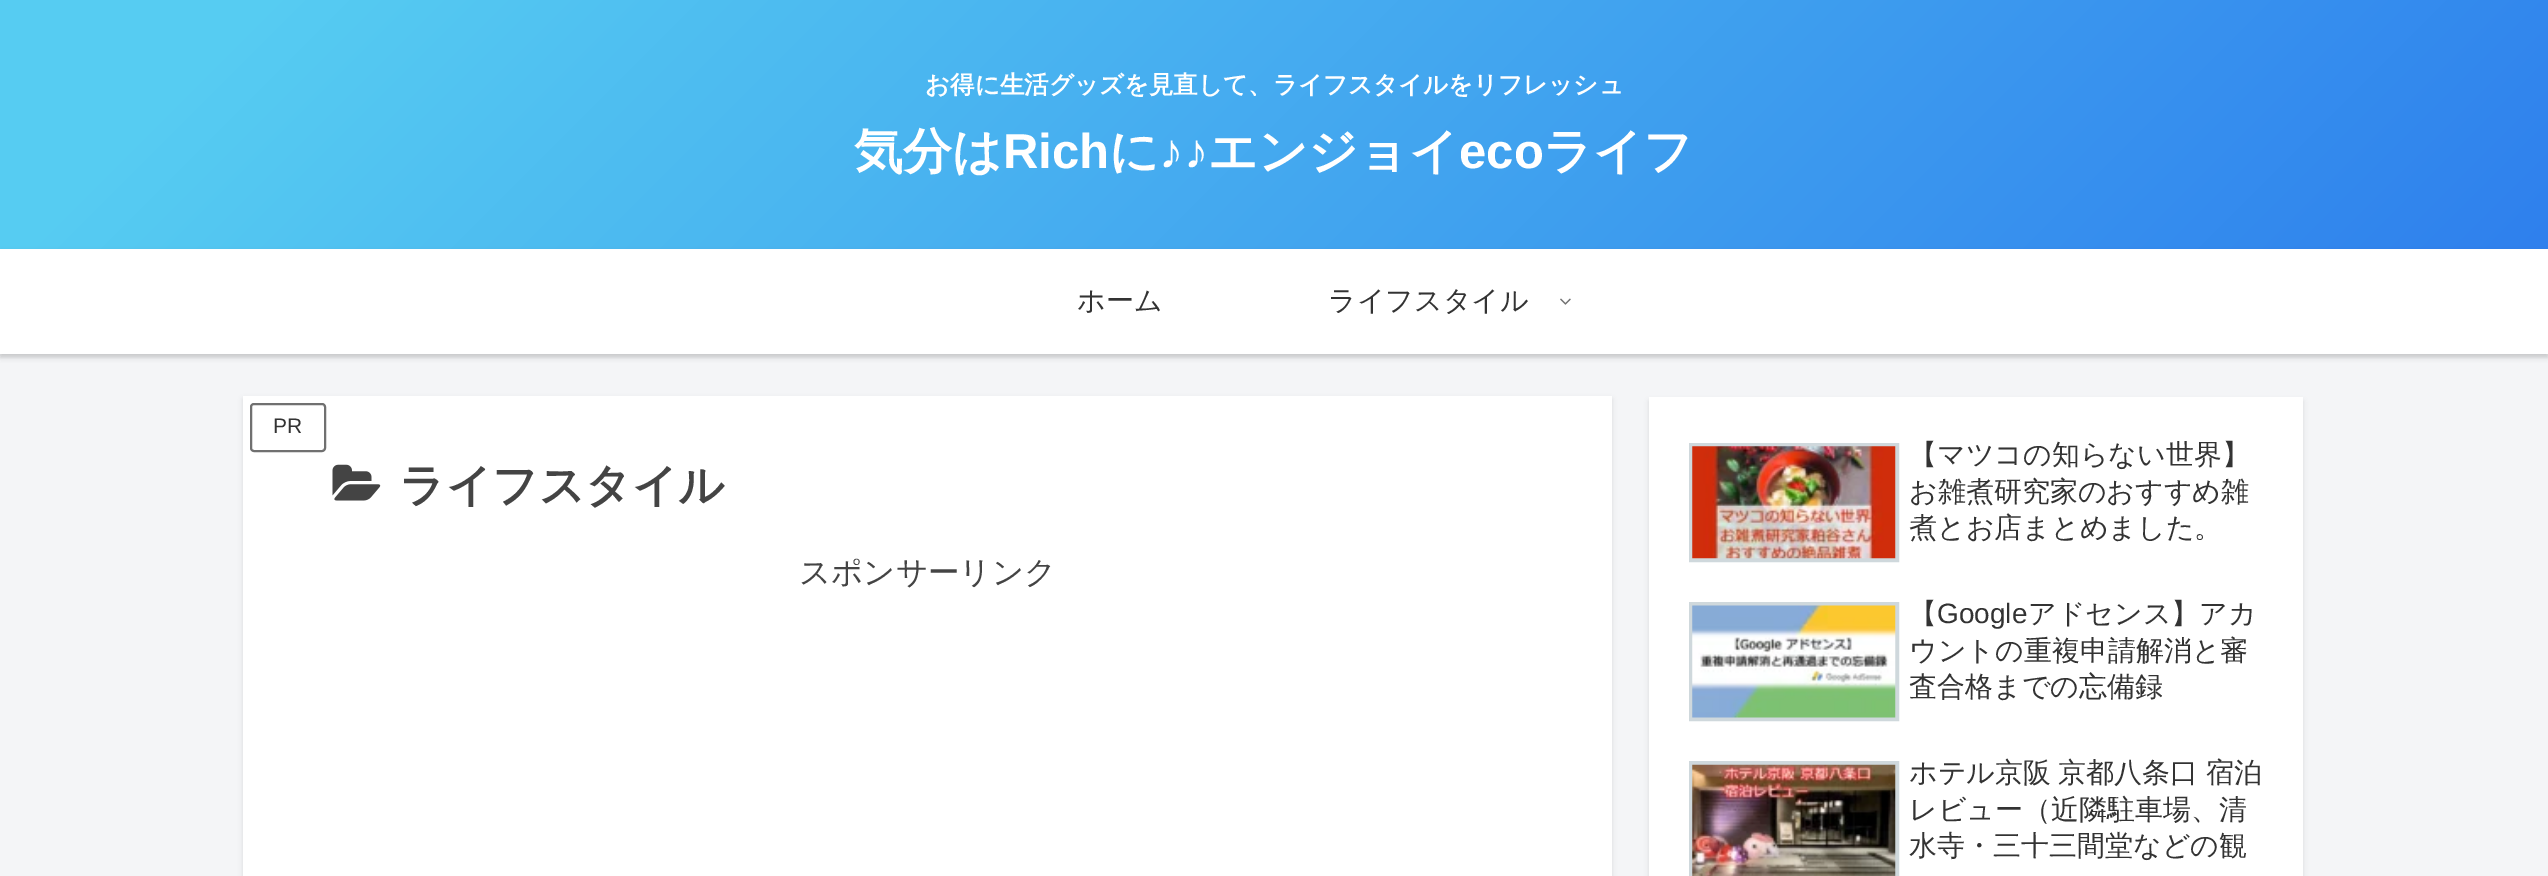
%!PS-Adobe-3.0
%%BoundingBox: 0 0 2548 876
%%LanguageLevel: 3
%%Pages: 1
%%EndComments
%%BeginProlog
/m { moveto } bind def
/l { lineto } bind def
/h { closepath } bind def
/S { stroke } bind def
/q { gsave } bind def
/Q { grestore } bind def
/w { setlinewidth } bind def
/fn { [ exch dup neg 0 0 3 -1 roll 0 0 ] selectfont } def
/tx { moveto show } def
/bx { rectfill } def
/al { dup .setfillconstantalpha .setstrokeconstantalpha } def
/rr { 5 dict begin { /r /h /w /y /x } { exch def } forall
  x r add y moveto x w add y 2 copy h add r arct x w add y h add x 1 index r arct
  x y h add x y r arct x y 2 copy exch w add exch r arct closepath end } def
/sh { 12 dict begin { /a /b /q /h /w /y /x } { exch def } forall gsave /was 0 def
  9 -2 -9 { dup b mul 4 div /e exch def 1 sub .425 mul 2.718 exch exp 1 add a .99 .min exch div /now exch def
    1 1 now sub 1 was sub div sub al /was now def
    w h .min e 2 mul add 0 gt { x e sub y e sub w e 2 mul add h e 2 mul add
      q e add b .6 mul add w h .min 2 div e add .min 0 .max rr fill } if } for grestore end } def
/im { 5 dict begin { /h /w /y /x /name } { exch def } forall
  gsave x y translate w h scale
  w h 8 [w 0 0 h 0 0] name (r) file false 3 colorimage grestore end } def
%%EndProlog
%%BeginSetup
<< /PageSize [2548 876] /PageUsesTransparency true >> setpagedevice
%%EndSetup
%%Page: 1 1
0 .pushpdf14devicefilter
0 876 translate 1 -1 scale
4 setmiterlimit
0.957 0.961 0.969 setrgbcolor
0 0 2548 876 bx
0 setgray
0 4 2548 353 0 2.5 0.1 sh
q 0 0 m 2548 0 l 2548 249 l 0 249 l h clip newpath
<< /ShadingType 2 /ColorSpace /DeviceRGB /Coords [575 -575 1973 823] /Extend [true true] /Function << /FunctionType 3 /Domain [0 1] /Functions [<< /FunctionType 2 /Domain [0 1] /C0 [0.337 0.8 0.949] /C1 [0.337 0.8 0.949] /N 1 >> << /FunctionType 2 /Domain [0 1] /C0 [0.337 0.8 0.949] /C1 [0.184 0.502 0.929] /N 1 >>] /Bounds [0.1] /Encode [0 1 0 1] >> >> shfill Q
/WenQuanYiZenHei-Bold 24.5 fn
1 setgray
(お得に生活グッズを見直して、ライフスタイルをリフレッシュ) 925 93 tx
/WenQuanYiZenHei-Bold 49 fn
(気分は) 854 168 tx
/LiberationSans-Bold 49 fn
(Rich) 1003 168 tx
/WenQuanYiZenHei-Bold 49 fn
(に) 1109 168 tx
/LiberationSans-Bold 49 fn
(♪♪) 1159 168 tx
/WenQuanYiZenHei-Bold 49 fn
(エンジョイ) 1208 168 tx
/LiberationSans-Bold 49 fn
(eco) 1459 168 tx
/WenQuanYiZenHei-Bold 49 fn
(ライフ) 1543 168 tx
0 setgray
0 252 2548 105 0 2.5 0.1 sh
1 setgray
0 249 2548 105 bx
/WenQuanYiZenHei-Medium 28 fn
0.2 setgray
(ホーム) 1077 310 tx
(ライフスタイル) 1328 310 tx
(image0.raw) 1560 298 11 7 im
0 setgray
243 399 1369 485 0 2.5 0.1 sh
1 setgray
243 396 1369 480 bx
0.439 setgray
2 w
251 404 74 47 3 rr S
/LiberationSans-Regular 21 fn
0.2 setgray
(PR) 273 433 tx
(image1.raw) 332 464 49 37 im
/WenQuanYiZenHei-Bold 45.5 fn
0.267 setgray
(ライフスタイル) 399 501 tx
/WenQuanYiZenHei-Medium 31.5 fn
(スポンサーリンク) 799 583 tx
0 setgray
1649 401 654 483 0 2.5 0.1 sh
1 setgray
1649 397 654 479 bx
0.812 0.847 0.863 setrgbcolor
4 w
1691 445 206 115 rectstroke
(image2.raw) 1692 446 204 113 im
/WenQuanYiZenHei-Medium 28 fn
0.2 setgray
(【マツコの知らない世界】) 1909 464 tx
(お雑煮研究家のおすすめ雑) 1909 501 tx
(煮とお店まとめました。) 1909 537 tx
0.812 0.847 0.863 setrgbcolor
1691 604 206 115 rectstroke
(image3.raw) 1692 605 204 113 im
0.2 setgray
(【) 1909 623 tx
/LiberationSans-Regular 28 fn
(Google) 1937 623 tx
/WenQuanYiZenHei-Medium 28 fn
(アドセンス】アカ) 2028 623 tx
(ウントの重複申請解消と審) 1909 660 tx
(査合格までの忘備録) 1909 696 tx
0.812 0.847 0.863 setrgbcolor
1691 763 206 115 rectstroke
(image4.raw) 1692 764 204 112 im
0.2 setgray
1909 782 m -1 0 32 (ホテル京阪 京都八条口 宿泊) widthshow
(レビュー（近隣駐車場、清) 1909 819 tx
(水寺・三十三間堂などの観) 1909 855 tx
.poppdf14devicefilter showpage
%%EOF
